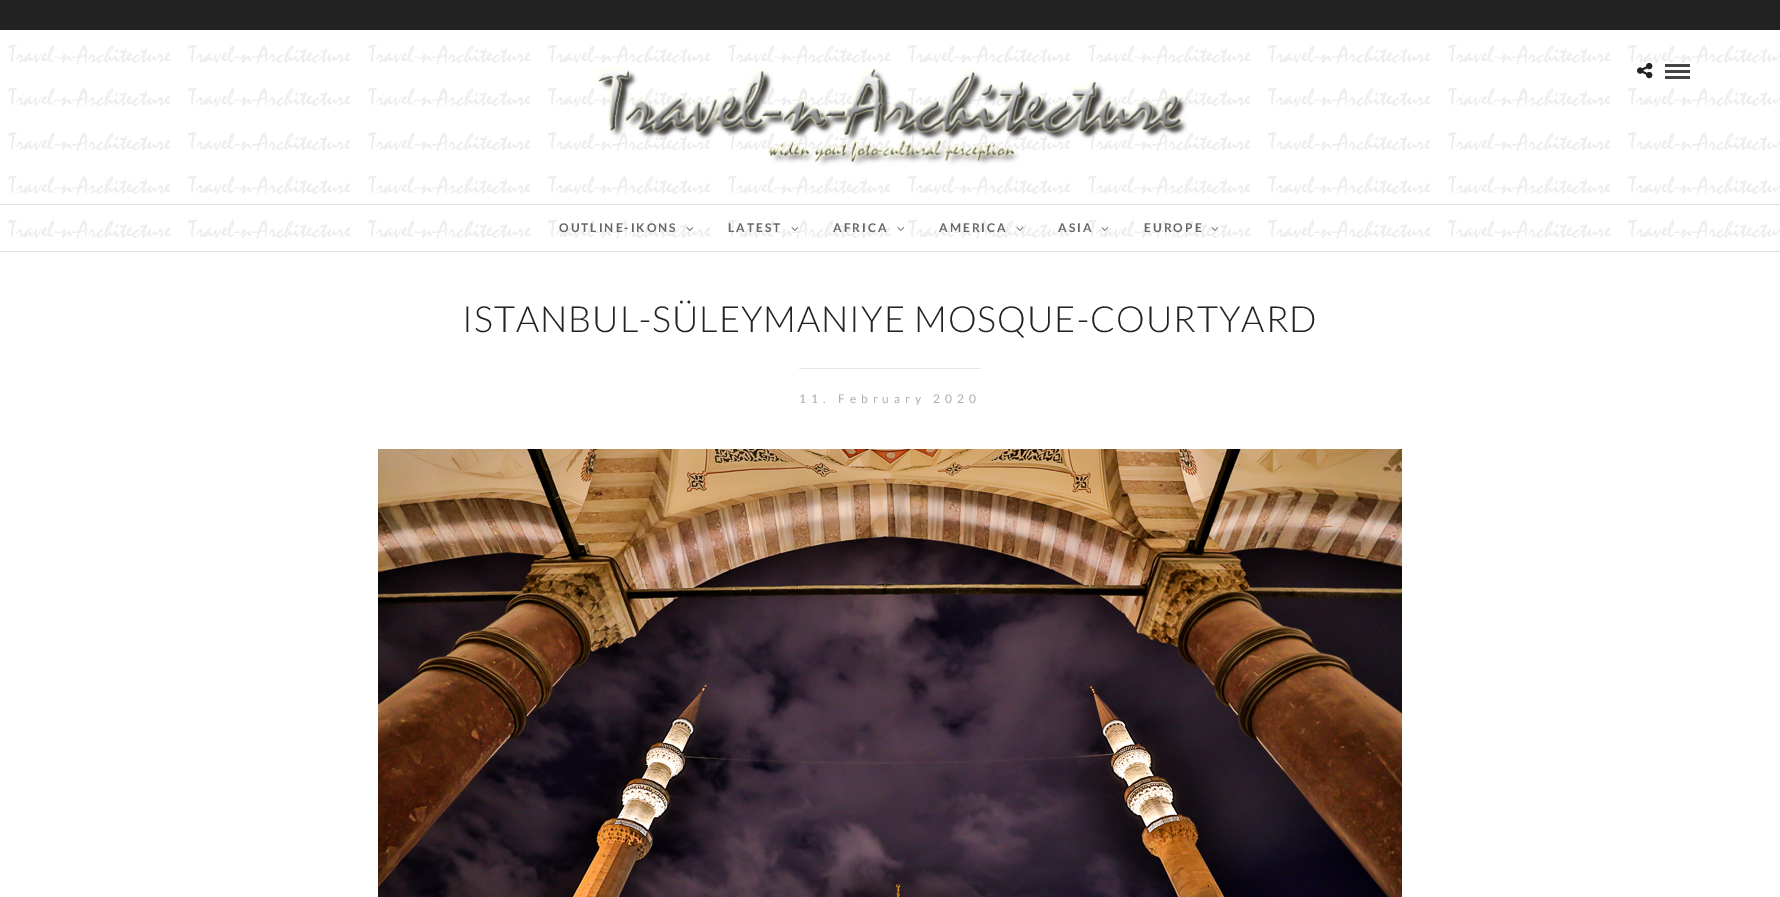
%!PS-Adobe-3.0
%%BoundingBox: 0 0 1780 897
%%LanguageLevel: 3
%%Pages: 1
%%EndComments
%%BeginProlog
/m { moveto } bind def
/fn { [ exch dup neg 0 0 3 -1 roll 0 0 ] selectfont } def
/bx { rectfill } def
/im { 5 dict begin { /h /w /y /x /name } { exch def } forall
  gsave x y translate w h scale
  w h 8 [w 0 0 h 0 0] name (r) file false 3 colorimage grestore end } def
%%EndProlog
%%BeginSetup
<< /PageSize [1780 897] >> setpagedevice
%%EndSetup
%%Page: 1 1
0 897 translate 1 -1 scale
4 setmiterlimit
1 setgray
0 0 1780 897 bx
0.133 setgray
0 0 1780 30 bx
(image0.raw) 8 45 1772 194 im
0.882 setgray
0 251 1780 1 bx
0 204 1780 1 bx
(image1.raw) 597 67 591 99 im
(image2.raw) 1637 62 16 17 im
0.267 setgray
1665 64 25 3 bx
1665 70 25 3 bx
1665 76 25 3 bx
/Lato-Bold 12 fn
0.4 setgray
559 232 m 2 0 (OUTLINE-IKONS) ashow
(image3.raw) 686 227 8 4 im
728 232 m 2 0 (LATEST) ashow
(image4.raw) 791 227 8 4 im
833 232 m 2 0 (AFRICA) ashow
(image5.raw) 897 227 8 4 im
939 232 m 2 0 (AMERICA) ashow
(image6.raw) 1016 227 8 4 im
1058 232 m 2 0 (ASIA) ashow
(image7.raw) 1101 227 8 4 im
1144 232 m 2 0 (EUROPE) ashow
(image8.raw) 1211 227 8 4 im
/Lato-Light 36 fn
0.133 setgray
462 332 m 1 0 (ISTANBUL-SÜLEYMANIYE MOSQUE-COURTYARD) ashow
0.906 setgray
799 368 182 1 bx
/Lato-Regular 12 fn
0.678 setgray
799 403 m 5 0 (11. February 2020) ashow
(image9.raw) 378 449 1024 448 im
showpage
%%EOF
